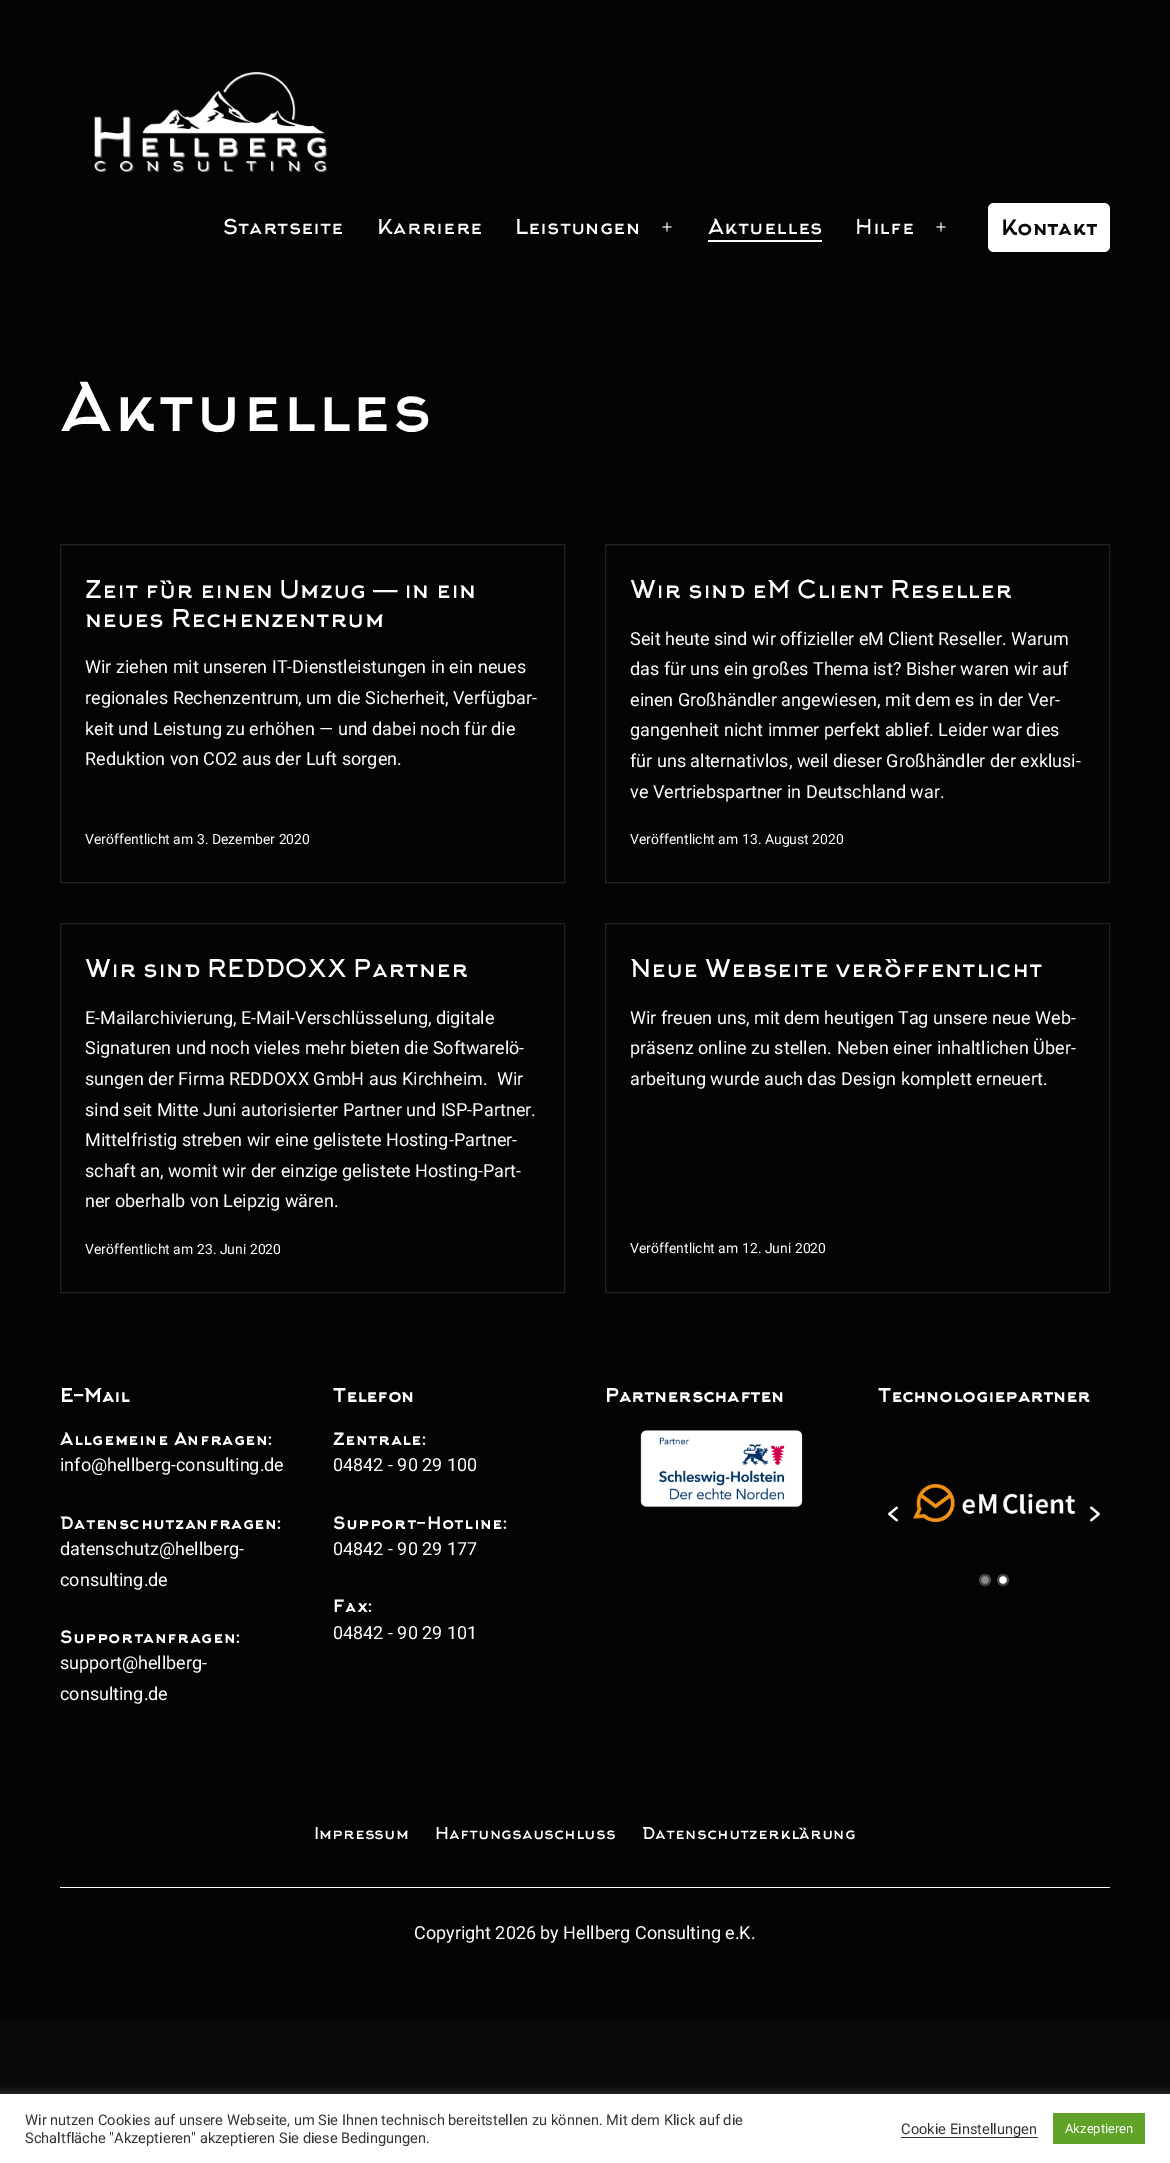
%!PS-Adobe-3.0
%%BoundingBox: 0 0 1170 2163
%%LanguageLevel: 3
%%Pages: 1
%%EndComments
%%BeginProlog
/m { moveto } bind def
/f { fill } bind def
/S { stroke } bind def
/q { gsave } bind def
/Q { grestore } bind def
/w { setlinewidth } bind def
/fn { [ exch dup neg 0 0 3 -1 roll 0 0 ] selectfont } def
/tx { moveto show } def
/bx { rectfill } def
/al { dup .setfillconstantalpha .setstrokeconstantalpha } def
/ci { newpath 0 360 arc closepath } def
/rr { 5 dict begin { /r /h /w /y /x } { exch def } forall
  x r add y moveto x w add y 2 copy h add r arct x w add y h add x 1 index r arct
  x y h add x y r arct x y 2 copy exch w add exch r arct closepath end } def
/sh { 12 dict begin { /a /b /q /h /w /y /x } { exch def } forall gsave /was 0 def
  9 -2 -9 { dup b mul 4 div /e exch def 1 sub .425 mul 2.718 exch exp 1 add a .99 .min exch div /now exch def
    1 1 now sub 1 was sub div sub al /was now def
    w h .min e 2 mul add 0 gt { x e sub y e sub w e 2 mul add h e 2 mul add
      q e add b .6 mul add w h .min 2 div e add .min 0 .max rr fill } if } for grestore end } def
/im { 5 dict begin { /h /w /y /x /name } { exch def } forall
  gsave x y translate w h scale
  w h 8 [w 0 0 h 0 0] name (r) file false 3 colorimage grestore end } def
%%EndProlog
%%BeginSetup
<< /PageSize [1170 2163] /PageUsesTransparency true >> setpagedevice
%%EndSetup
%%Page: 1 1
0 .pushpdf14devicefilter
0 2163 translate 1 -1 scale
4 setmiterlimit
0.039 0.035 0.035 setrgbcolor
0 0 1170 2163 bx
0.016 setgray
0 0 1170 2019 bx
(image0.raw) 94 72 233 100 im
/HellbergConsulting-Regular 20 fn
1 setgray
(Startseite) 223 234 tx
(Karriere) 377 234 tx
(Leistungen) 515 234 tx
(image1.raw) 662 222 10 10 im
(Aktuelles) 708 234 tx
708 240 114 2 bx
(Hilfe) 855 234 tx
(image1.raw) 936 222 10 10 im
988 203 122 49 6 rr f
/HellbergConsulting-Bold 20 fn
0.039 0.035 0.035 setrgbcolor
(Kontakt) 1001 235 tx
/HellbergConsulting-Regular 65 fn
1 setgray
(Aktuelles) 60 431 tx
0.133 setgray
60.5 544.5 504 338 rectstroke
/HellbergConsulting-Regular 24 fn
1 setgray
(Zeit für einen Umzug — in ein) 85 598 tx
(neues Rechenzentrum) 85 627 tx
/Roboto-Regular 18 fn
(Wir ziehen mit unseren IT-Dienstleistungen in ein neues) 85 673 tx
(regionales Rechenzentrum, um die Sicherheit, Verfügbar-) 85 704 tx
(keit und Leistung zu erhöhen — und dabei noch für die) 85 735 tx
(Reduktion von CO2 aus der Luft sorgen.) 85 765 tx
/Roboto-Regular 14 fn
(Veröffentlicht am 3. Dezember 2020) 85 844 tx
0.133 setgray
605.5 544.5 504 338 rectstroke
/HellbergConsulting-Regular 24 fn
1 setgray
(Wir sind eM Client Reseller) 630 598 tx
/Roboto-Regular 18 fn
630 645 m -0.25 0 32 (Seit heute sind wir offizieller eM Client Reseller. Warum) widthshow
(das für uns ein großes Thema ist? Bisher waren wir auf) 630 675 tx
(einen Großhändler angewiesen, mit dem es in der Ver-) 630 706 tx
(gangenheit nicht immer perfekt ablief. Leider war dies) 630 736 tx
(für uns alternativlos, weil dieser Großhändler der exklusi-) 630 767 tx
(ve Vertriebspartner in Deutschland war.) 630 798 tx
/Roboto-Regular 14 fn
(Veröffentlicht am 13. August 2020) 630 844 tx
0.133 setgray
60.5 923.5 504 369 rectstroke
/HellbergConsulting-Regular 24 fn
1 setgray
(Wir sind REDDOXX Partner) 85 977 tx
/Roboto-Regular 18 fn
(E‑Mailarchivierung, E‑Mail-Verschlüsselung, digitale) 85 1024 tx
(Signaturen und noch vieles mehr bieten die Softwarelö-) 85 1054 tx
(sungen der Firma REDDOXX GmbH aus Kirchheim.  Wir) 85 1085 tx
(sind seit Mitte Juni autorisierter Partner und ISP-Partner.) 85 1116 tx
(Mittelfristig streben wir eine gelistete Hosting-Partner-) 85 1146 tx
(schaft an, womit wir der einzige gelistete Hosting-Part-) 85 1177 tx
(ner oberhalb von Leipzig wären.) 85 1207 tx
/Roboto-Regular 14 fn
(Veröffentlicht am 23. Juni 2020) 85 1254 tx
0.133 setgray
605.5 923.5 504 369 rectstroke
/HellbergConsulting-Regular 24 fn
1 setgray
(Neue Webseite veröffentlicht) 630 977 tx
/Roboto-Regular 18 fn
(Wir freuen uns, mit dem heutigen Tag unsere neue Web-) 630 1024 tx
(präsenz online zu stellen. Neben einer inhaltlichen Über-) 630 1054 tx
(arbeitung wurde auch das Design komplett erneuert.) 630 1085 tx
/Roboto-Regular 14 fn
(Veröffentlicht am 12. Juni 2020) 630 1253 tx
/HellbergConsulting-Bold 18 fn
(E‑Mail) 60 1402 tx
/HellbergConsulting-Bold 16 fn
60 1445 m 0.8 0 (Allgemeine Anfragen:) ashow
/Roboto-Regular 18 fn
(info@hellberg-consulting.de) 60 1471 tx
/HellbergConsulting-Bold 16 fn
60 1529 m 0.8 0 (Datenschutzanfragen:) ashow
/Roboto-Regular 18 fn
(datenschutz@hellberg-) 60 1555 tx
(consulting.de) 60 1586 tx
/HellbergConsulting-Bold 16 fn
60 1643 m 0.8 0 (Supportanfragen:) ashow
/Roboto-Regular 18 fn
(support@hellberg-) 60 1669 tx
(consulting.de) 60 1700 tx
/HellbergConsulting-Bold 18 fn
(Telefon) 333 1402 tx
/HellbergConsulting-Bold 16 fn
333 1445 m 0.8 0 (Zentrale:) ashow
/Roboto-Regular 18 fn
(04842 - 90 29 100) 333 1471 tx
/HellbergConsulting-Bold 16 fn
333 1529 m 0.8 0 (Support-Hotline:) ashow
/Roboto-Regular 18 fn
(04842 - 90 29 177) 333 1555 tx
/HellbergConsulting-Bold 16 fn
333 1612 m 0.8 0 (Fax:) ashow
/Roboto-Regular 18 fn
(04842 - 90 29 101) 333 1639 tx
/HellbergConsulting-Bold 18 fn
(Partnerschaften) 605 1402 tx
(image2.raw) 640 1430 163 77 im
(Technologiepartner) 878 1402 tx
(image3.raw) 888 1506 10 16 im
(image4.raw) 913 1484 162 38 im
(image5.raw) 1090 1506 10 16 im
0.553 0.549 0.549 setrgbcolor
985 1580 5 ci q f Q
0.267 setgray
2 w
S
1 setgray
1003 1580 5 ci q f Q
0.267 setgray
S
/HellbergConsulting-Regular 16 fn
1 setgray
(Impressum) 314 1839 tx
(Haftungsauschluss) 435 1839 tx
(Datenschutzerklärung) 642 1839 tx
60 1887 1050 1 bx
/Roboto-Regular 18 fn
(Copyright 2026 by Hellberg Consulting e.K.) 414 1939 tx
0.675 0.671 0.671 setrgbcolor
0 2093 1170 69 0 5 0.3 sh
1 setgray
0 2094 1170 69 bx
/Roboto-Regular 14.65 fn
0.2 setgray
(Wir nutzen Cookies auf unsere Webseite, um Sie Ihnen technisch bereitstellen zu können. Mit dem Klick auf die) 25 2125 tx
(Schaltfläche "Akzeptieren" akzeptieren Sie diese Bedingungen.) 25 2143 tx
901 2137 137 1 bx
(Cookie Einstellungen) 901 2134 tx
0.38 0.635 0.161 setrgbcolor
1053 2113 92 31 bx
/Roboto-Regular 13 fn
1 setgray
(Akzeptieren) 1065 2133 tx
.poppdf14devicefilter showpage
%%EOF
